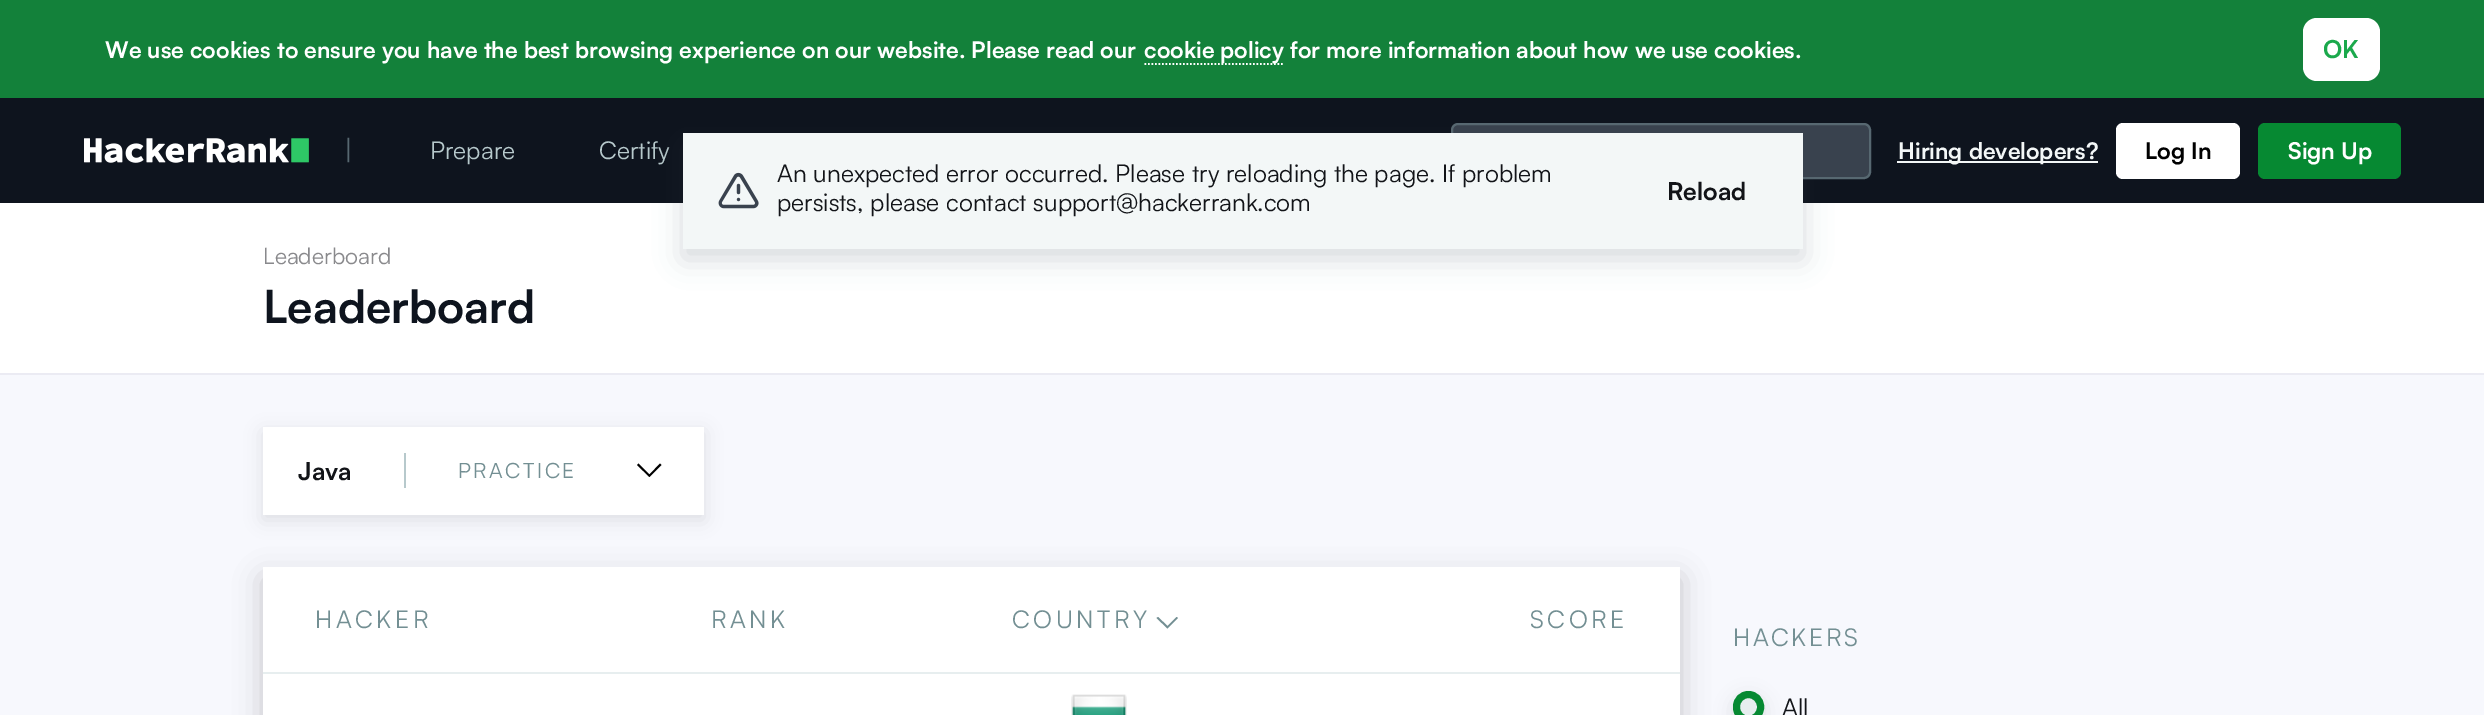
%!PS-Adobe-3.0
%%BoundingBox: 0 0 2484 715
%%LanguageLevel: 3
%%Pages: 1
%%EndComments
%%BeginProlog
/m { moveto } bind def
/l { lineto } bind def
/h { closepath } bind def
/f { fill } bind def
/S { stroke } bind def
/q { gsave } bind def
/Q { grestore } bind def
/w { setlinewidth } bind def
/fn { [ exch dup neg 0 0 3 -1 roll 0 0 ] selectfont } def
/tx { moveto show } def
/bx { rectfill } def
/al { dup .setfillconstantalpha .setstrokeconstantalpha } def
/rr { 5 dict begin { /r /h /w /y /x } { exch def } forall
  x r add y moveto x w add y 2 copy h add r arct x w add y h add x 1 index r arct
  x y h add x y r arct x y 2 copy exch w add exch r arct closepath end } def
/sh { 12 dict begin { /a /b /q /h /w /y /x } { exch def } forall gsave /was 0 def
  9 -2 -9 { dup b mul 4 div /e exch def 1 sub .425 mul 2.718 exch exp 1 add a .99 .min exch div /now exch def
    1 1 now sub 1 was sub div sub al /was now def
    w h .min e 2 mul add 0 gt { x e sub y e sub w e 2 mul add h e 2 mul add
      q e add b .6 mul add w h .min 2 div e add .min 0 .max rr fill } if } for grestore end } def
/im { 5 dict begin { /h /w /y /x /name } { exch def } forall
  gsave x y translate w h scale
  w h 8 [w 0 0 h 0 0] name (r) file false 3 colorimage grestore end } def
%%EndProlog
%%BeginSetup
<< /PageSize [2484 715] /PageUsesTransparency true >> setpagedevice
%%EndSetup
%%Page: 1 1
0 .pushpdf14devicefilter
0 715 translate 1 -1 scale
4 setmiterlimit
0.969 0.973 0.992 setrgbcolor
0 0 2484 715 bx
0.075 0.506 0.227 setrgbcolor
0 0 2484 98 bx
/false-Bold 22.75 fn
1 setgray
(We use cookies to ensure you have the best browsing experience on our website. Please read our) 105 58 tx
1.8 w
[1.75 1.75] 0 setdash
1144.5 64 m 1284.5 64 l S
(cookie policy for more information about how we use cookies.) 1144 58 tx
2303 18 77 63 14 rr f
/false-Bold 24.5 fn
0.106 0.663 0.298 setrgbcolor
(OK) 2323 58 tx
0.055 0.078 0.118 setrgbcolor
0 98 2484 105 bx
(image0.raw) 84 138 225 25 im
/false-Regular 28 fn
0.341 0.408 0.443 setrgbcolor
(|) 344 160 tx
/false-Regular 24.5 fn
0.718 0.788 0.8 setrgbcolor
(Prepare) 430 159 tx
(Certify) 599 159 tx
0.224 0.259 0.306 setrgbcolor
1452 124 418 54 6 rr q f Q
0.341 0.408 0.443 setrgbcolor
2 w
[] 0 setdash
S
0.953 0.969 0.969 setrgbcolor
1897 161 201 2 bx
/false-Bold 22.75 fn
(Hiring developers?) 1898 159 tx
1 setgray
2116 123 124 56 7 rr f
/false-Bold 23 fn
0 setgray
(Log In) 2145 159 tx
0.024 0.537 0.196 setrgbcolor
2258 123 143 56 7 rr f
1 setgray
(Sign Up) 2288 159 tx
0 203 2484 170 bx
0.922 0.922 0.953 setrgbcolor
0 373 2484 2 bx
/false-Regular 22.75 fn
0.537 0.537 0.549 setrgbcolor
(Leaderboard) 263 264 tx
/false-Bold 45.5 fn
0.055 0.078 0.118 setrgbcolor
(Leaderboard) 263 323 tx
0 setgray
263 432 441 88 0 9 0.1 sh
1 setgray
263 427 441 88 bx
/false-Bold 24.5 fn
0.071 0.078 0.094 setrgbcolor
(Java) 298 480 tx
0.718 0.788 0.8 setrgbcolor
404 453 2 35 bx
/false-Regular 21 fn
0.451 0.561 0.576 setrgbcolor
458 478 m 2.5 0 (PRACTICE) ashow
0 setgray
649.5 474.5 m 638.5 463.5 l 637 465 l 649.5 477 l 661.5 465 l 660 463.5 l h f
263 578 1417 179 0 14 0.2 sh
1 setgray
263 567 1417 148 bx
0.906 0.933 0.937 setrgbcolor
263 672 1417 2 bx
/false-Regular 24.5 fn
0.451 0.561 0.576 setrgbcolor
315 628 m 3.5 0 (HACKER) ashow
711 628 m 3.5 0 (RANK) ashow
1012 628 m 3.5 0 (COUNTRY) ashow
1167.5 626 m 1158 617 l 1156.5 618 l 1167.5 628.5 l 1178 618 l 1176.5 617 l h f
1530 628 m 3.5 0 (SCORE) ashow
(image1.raw) 1071 694 56 21 im
1733 646 m 2.5 0 (HACKERS) ashow
0 setgray
1733 697 31 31 15.5 9 0.1 sh
0.906 0.933 0.937 setrgbcolor
1736.5 694.5 24 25 12 rr q f Q
0.024 0.537 0.196 setrgbcolor
7 w
S
0.071 0.078 0.094 setrgbcolor
(All) 1782 716 tx
0.224 0.259 0.306 setrgbcolor
683 144 1120 115 0 14 0.2 sh
0.953 0.969 0.969 setrgbcolor
683 133 1120 116 bx
(image2.raw) 718 172 41 37 im
0.071 0.078 0.094 setrgbcolor
(An unexpected error occurred. Please try reloading the page. If problem) 777 182 tx
(persists, please contact support@hackerrank.com) 777 211 tx
/false-Bold 24.5 fn
(Reload) 1667 200 tx
.poppdf14devicefilter showpage
%%EOF
